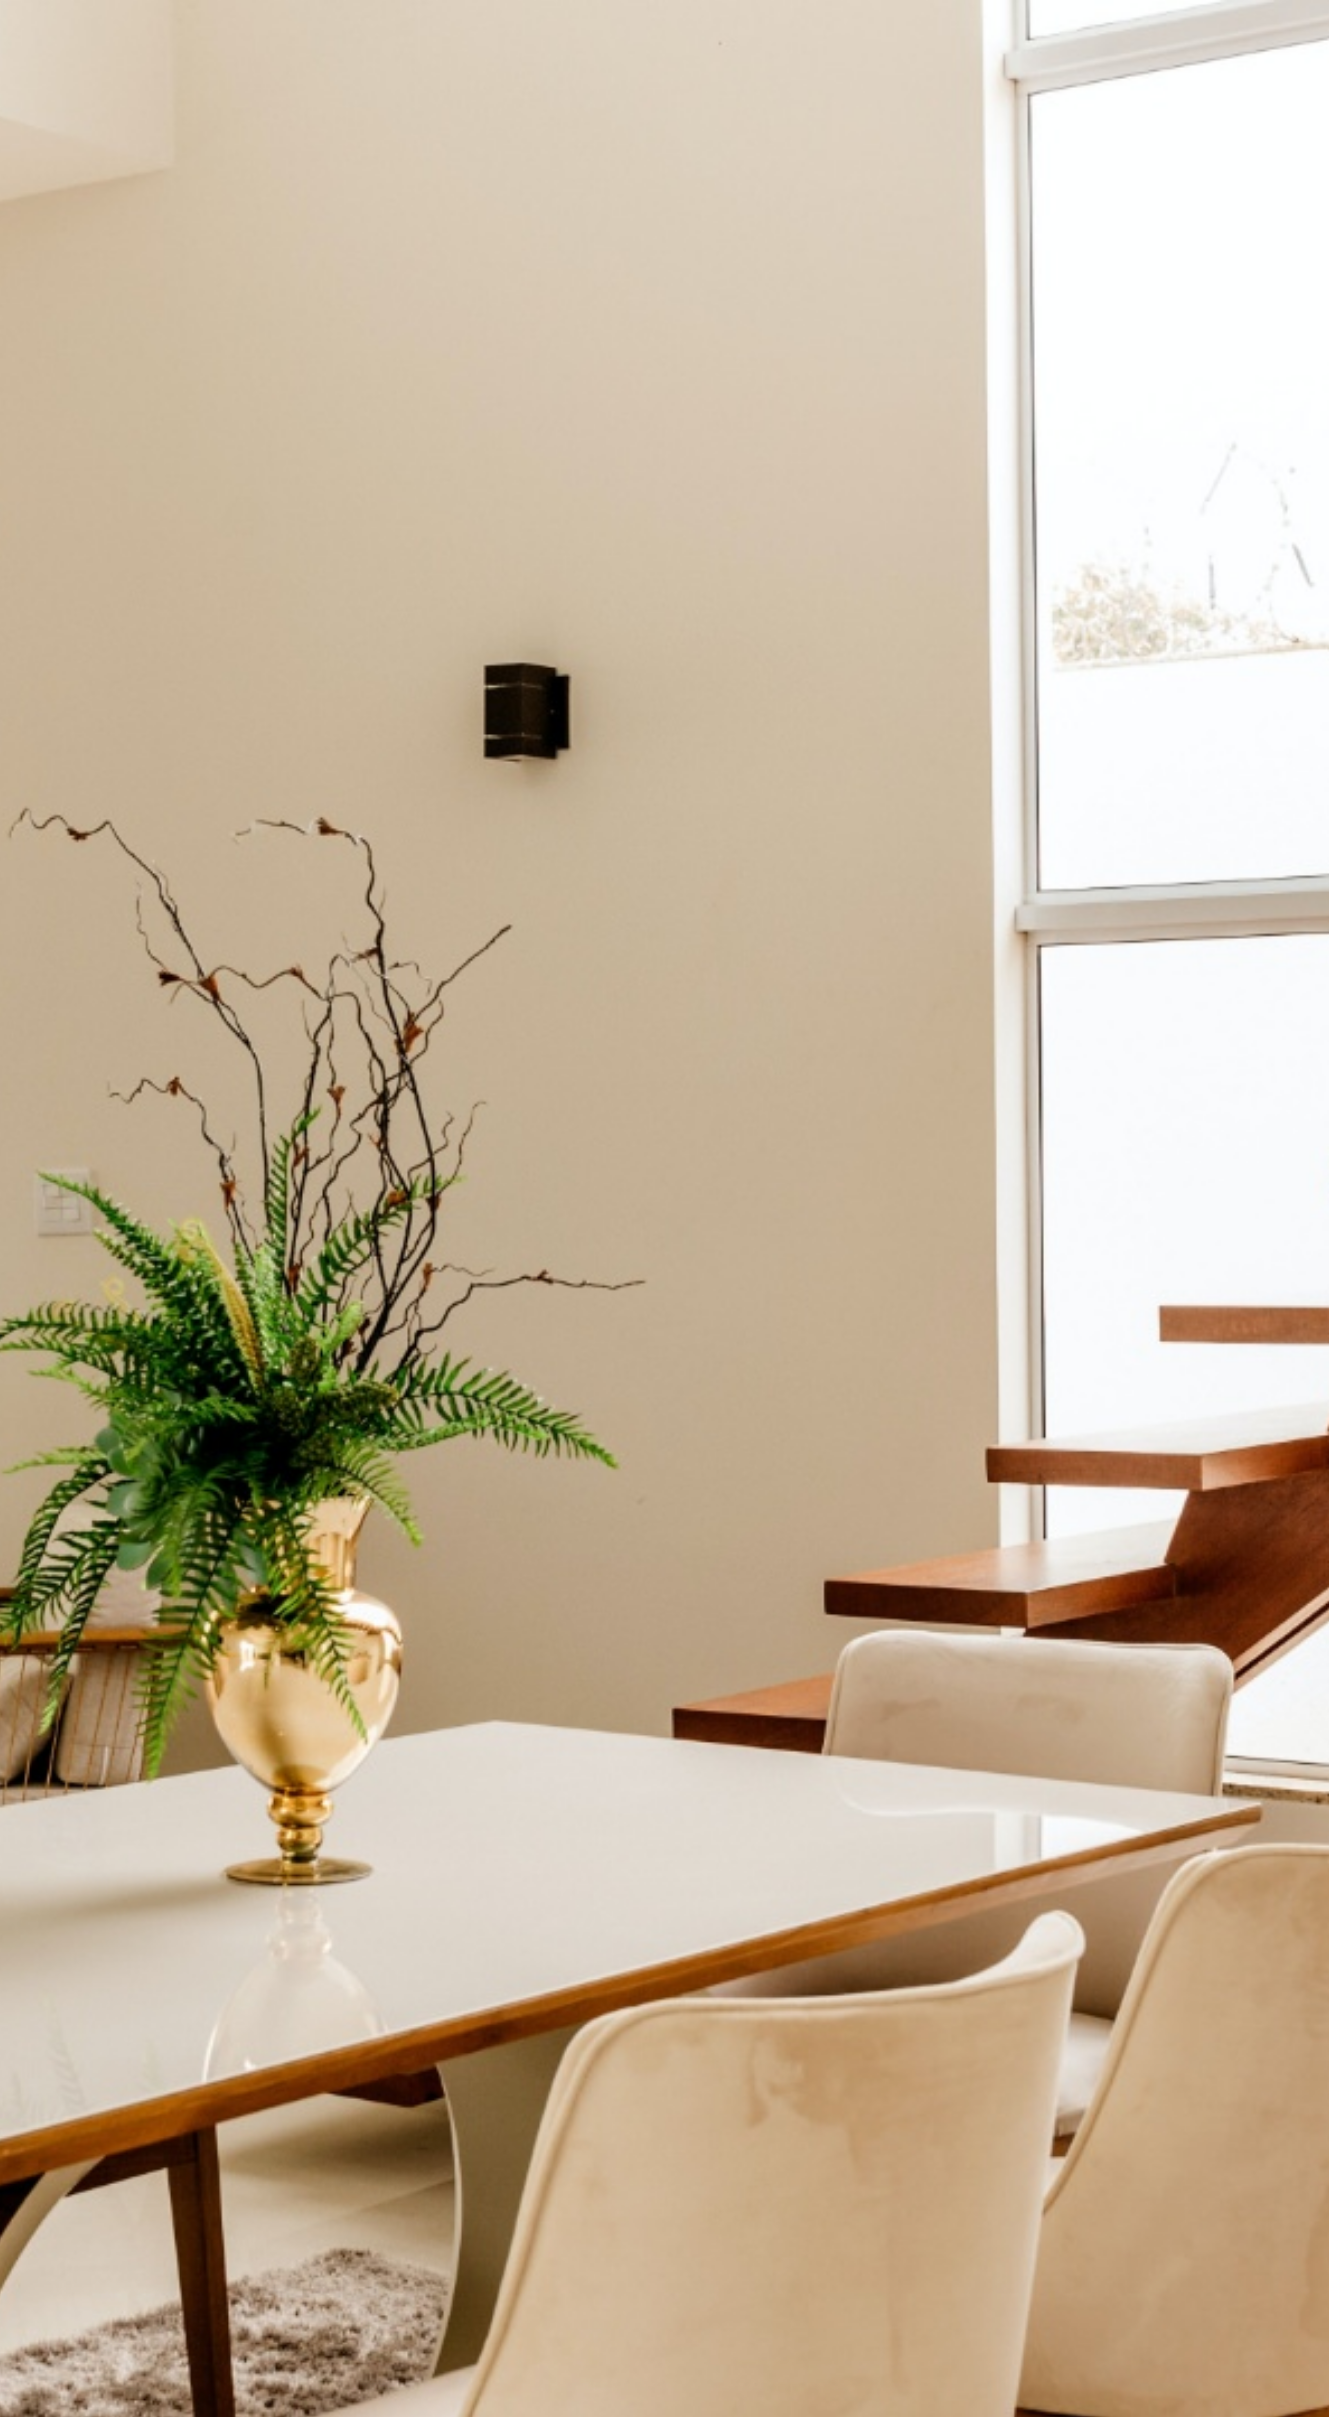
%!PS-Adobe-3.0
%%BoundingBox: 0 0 1329 2417
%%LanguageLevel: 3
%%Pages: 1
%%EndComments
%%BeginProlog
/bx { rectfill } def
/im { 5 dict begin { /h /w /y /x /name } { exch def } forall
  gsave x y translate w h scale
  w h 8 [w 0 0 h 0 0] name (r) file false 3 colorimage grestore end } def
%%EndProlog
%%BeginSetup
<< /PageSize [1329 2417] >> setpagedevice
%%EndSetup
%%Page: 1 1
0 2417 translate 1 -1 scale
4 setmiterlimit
1 setgray
0 0 1329 2417 bx
(image0.raw) 0 0 1329 2417 im
showpage
%%EOF
